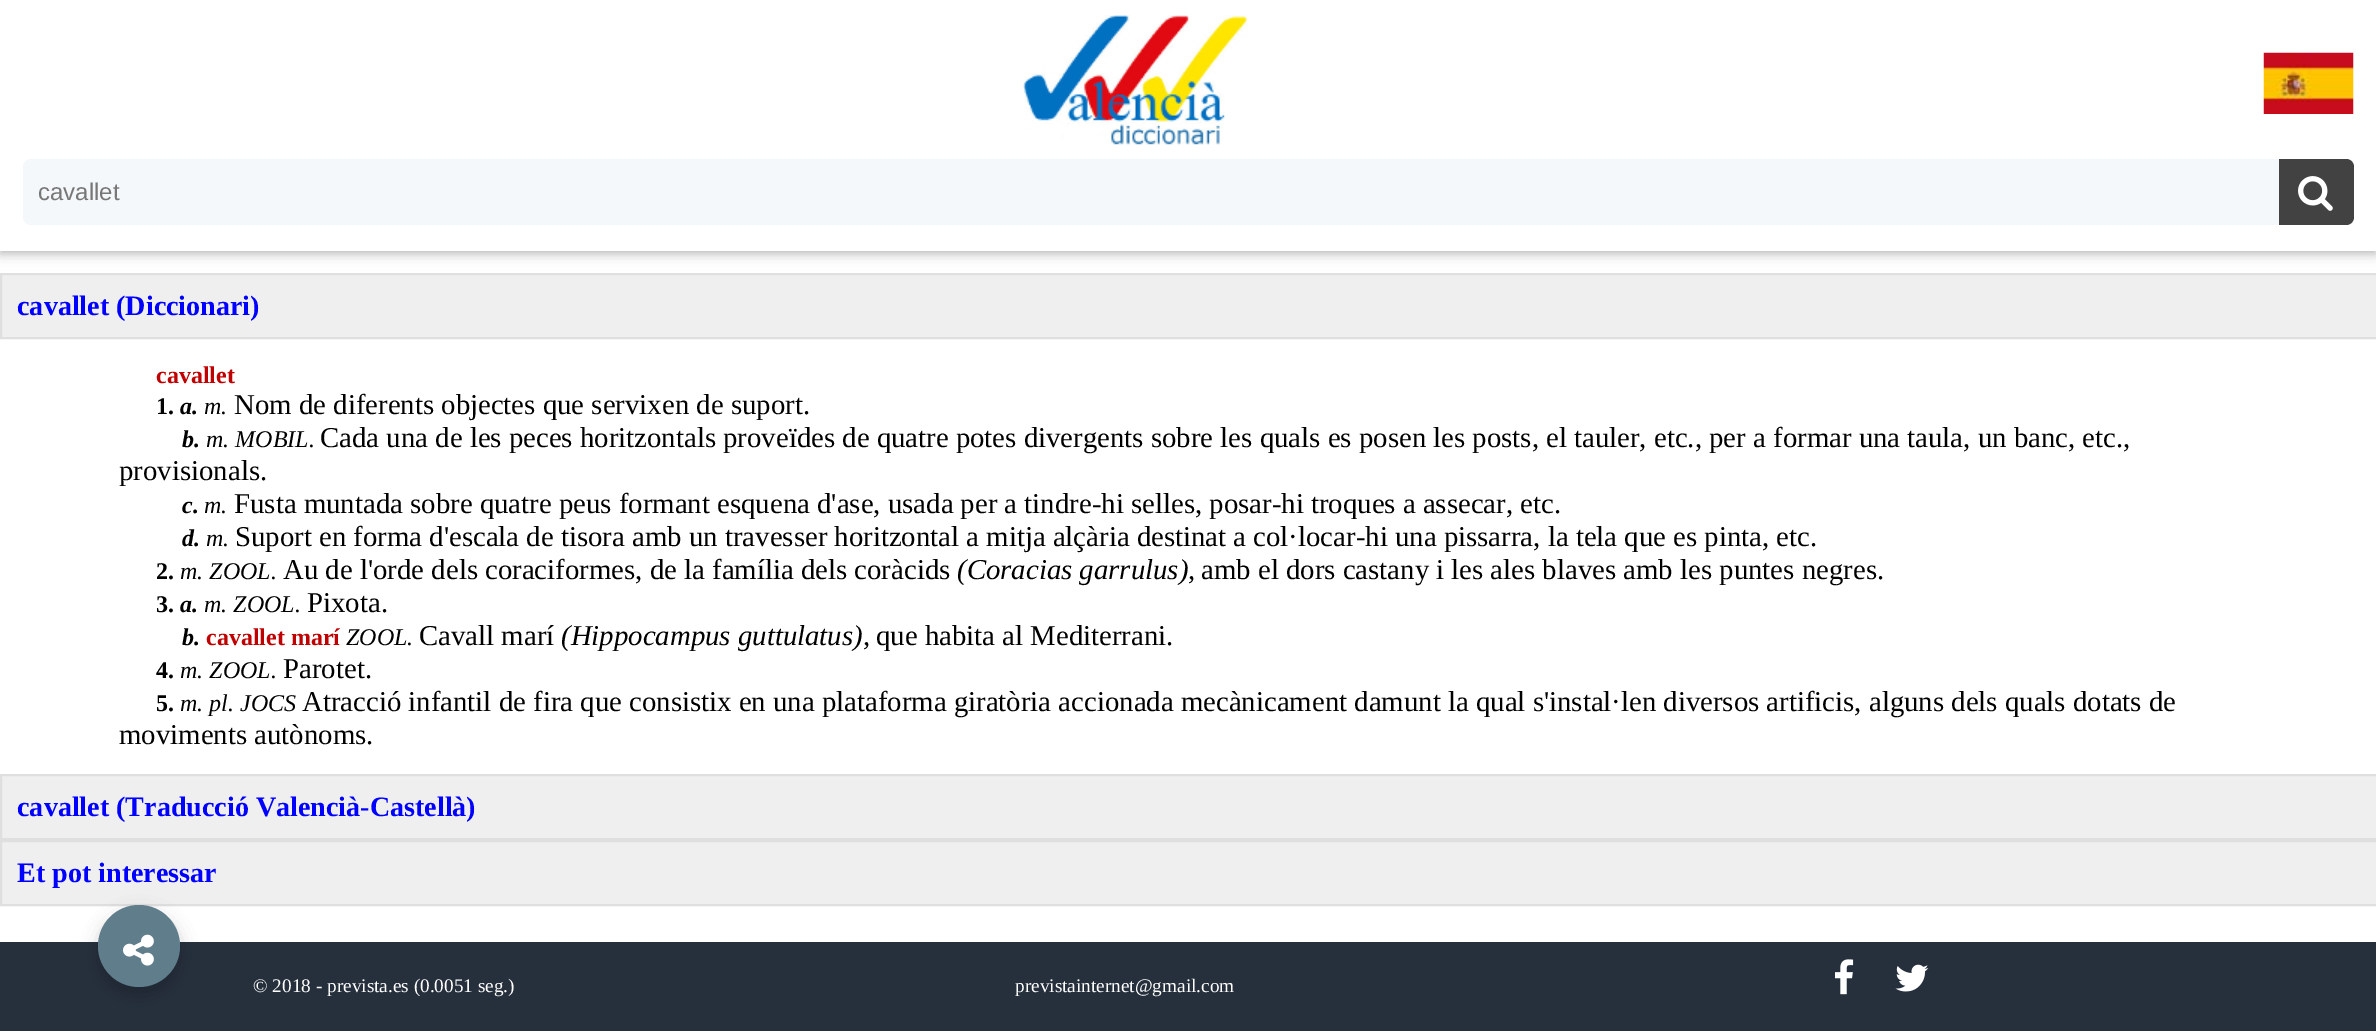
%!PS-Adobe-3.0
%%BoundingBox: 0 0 2376 1031
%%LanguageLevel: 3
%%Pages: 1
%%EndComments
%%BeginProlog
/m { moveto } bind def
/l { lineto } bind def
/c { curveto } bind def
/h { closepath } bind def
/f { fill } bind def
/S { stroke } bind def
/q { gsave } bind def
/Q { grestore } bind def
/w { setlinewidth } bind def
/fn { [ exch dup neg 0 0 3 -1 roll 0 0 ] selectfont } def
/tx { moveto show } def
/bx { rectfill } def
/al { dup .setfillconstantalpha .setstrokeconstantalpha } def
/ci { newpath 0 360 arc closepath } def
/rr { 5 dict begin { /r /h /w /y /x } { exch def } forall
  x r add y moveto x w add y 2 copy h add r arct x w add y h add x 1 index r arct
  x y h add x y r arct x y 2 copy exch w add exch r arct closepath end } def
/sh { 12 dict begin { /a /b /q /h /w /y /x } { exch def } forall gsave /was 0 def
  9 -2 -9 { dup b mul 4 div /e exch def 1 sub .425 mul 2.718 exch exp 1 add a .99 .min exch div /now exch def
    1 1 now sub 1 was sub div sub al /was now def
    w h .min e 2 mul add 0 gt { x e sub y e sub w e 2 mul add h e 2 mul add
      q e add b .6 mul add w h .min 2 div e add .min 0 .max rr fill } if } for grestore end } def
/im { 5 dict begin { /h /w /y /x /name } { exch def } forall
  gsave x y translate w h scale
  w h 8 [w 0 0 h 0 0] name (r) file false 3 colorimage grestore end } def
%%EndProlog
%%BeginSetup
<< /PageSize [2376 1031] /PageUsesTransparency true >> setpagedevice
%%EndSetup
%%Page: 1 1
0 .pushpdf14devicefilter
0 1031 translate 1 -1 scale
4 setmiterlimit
1 setgray
0 0 2376 1031 bx
0.937 setgray
1 274 m 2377 274 l 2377 338 l 1 338 l h q f Q
0.875 setgray
2 w
S
0 setgray
0 3 2376 251 0 7.5 0.12 sh
0 3 2376 251 0 4 0.16 sh
1 setgray
0 0 2376 251 bx
(image0.raw) 1023 15 225 130 im
(image1.raw) 2263 52 91 62 im
0.961 0.973 0.98 setrgbcolor
23 159 2331 66 8 rr f
/LiberationSans-Regular 24 fn
0.467 setgray
(cavallet) 38 200 tx
0.259 setgray
2279 159 m 2346 159 l 2350.5 159 2354 162.5 2354 167 c 2354 217 l 2354 221.5 2350.5 225 2346 225 c 2279 225 l h f
(image2.raw) 2298 176 35 35 im
/LiberationSerif-Bold 28.1 fn
0 0 1 setrgbcolor
(cavallet \(Diccionari\)) 17 315 tx
/LiberationSerif-Bold 24 fn
0.753 0 0 setrgbcolor
(cavallet) 156 383 tx
0 setgray
(1.) 156 414 tx
/LiberationSerif-BoldItalic 24 fn
(a.) 180 414 tx
/LiberationSerif-Italic 24 fn
(m.) 204 414 tx
/LiberationSerif-Regular 28.8 fn
(Nom de diferents objectes que servixen de suport.) 234 414 tx
/LiberationSerif-BoldItalic 24 fn
(b.) 182 447 tx
/LiberationSerif-Italic 24 fn
(m. MOBIL.) 206 447 tx
/LiberationSerif-Regular 28.8 fn
(Cada una de les peces horitzontals proveïdes de quatre potes divergents sobre les quals es posen les posts, el tauler, etc., per a formar una taula, un banc, etc.,) 320 447 tx
(provisionals.) 119 480 tx
/LiberationSerif-BoldItalic 24 fn
(c.) 182 513 tx
/LiberationSerif-Italic 24 fn
(m.) 204 513 tx
/LiberationSerif-Regular 28.8 fn
(Fusta muntada sobre quatre peus formant esquena d'ase, usada per a tindre-hi selles, posar-hi troques a assecar, etc.) 234 513 tx
/LiberationSerif-BoldItalic 24 fn
(d.) 182 546 tx
/LiberationSerif-Italic 24 fn
(m.) 206 546 tx
/LiberationSerif-Regular 28.8 fn
(Suport en forma d'escala de tisora amb un travesser horitzontal a mitja alçària destinat a col·locar-hi una pissarra, la tela que es pinta, etc.) 235 546 tx
/LiberationSerif-Bold 24 fn
(2.) 156 579 tx
/LiberationSerif-Italic 24 fn
(m. ZOOL.) 180 579 tx
/LiberationSerif-Regular 28.8 fn
(Au de l'orde dels coraciformes, de la família dels coràcids) 283 579 tx
/LiberationSerif-Italic 28.8 fn
(\(Coracias garrulus\),) 957 579 tx
/LiberationSerif-Regular 28.8 fn
(amb el dors castany i les ales blaves amb les puntes negres.) 1201 579 tx
/LiberationSerif-Bold 24 fn
(3.) 156 612 tx
/LiberationSerif-BoldItalic 24 fn
(a.) 180 612 tx
/LiberationSerif-Italic 24 fn
(m. ZOOL.) 204 612 tx
/LiberationSerif-Regular 28.8 fn
(Pixota.) 307 612 tx
/LiberationSerif-BoldItalic 24 fn
(b.) 182 645 tx
/LiberationSerif-Bold 24 fn
0.753 0 0 setrgbcolor
(cavallet marí) 206 645 tx
/LiberationSerif-Italic 24 fn
0 setgray
(ZOOL.) 346 645 tx
/LiberationSerif-Regular 28.8 fn
(Cavall marí) 419 645 tx
/LiberationSerif-Italic 28.8 fn
(\(Hippocampus guttulatus\),) 561 645 tx
/LiberationSerif-Regular 28.8 fn
(que habita al Mediterrani.) 876 645 tx
/LiberationSerif-Bold 24 fn
(4.) 156 678 tx
/LiberationSerif-Italic 24 fn
(m. ZOOL.) 180 678 tx
/LiberationSerif-Regular 28.8 fn
(Parotet.) 283 678 tx
/LiberationSerif-Bold 24 fn
(5.) 156 711 tx
/LiberationSerif-Italic 24 fn
(m. pl. JOCS) 180 711 tx
/LiberationSerif-Regular 28.8 fn
(Atracció infantil de fira que consistix en una plataforma giratòria accionada mecànicament damunt la qual s'instal·len diversos artificis, alguns dels quals dotats de) 302 711 tx
(moviments autònoms.) 119 744 tx
0.937 setgray
1 775 m 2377 775 l 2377 839 l 1 839 l h q f Q
0.875 setgray
S
/LiberationSerif-Bold 28.1 fn
0 0 1 setrgbcolor
(cavallet \(Traducció Valencià-Castellà\)) 17 816 tx
0.937 setgray
1 841 m 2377 841 l 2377 905 l 1 905 l h q f Q
0.875 setgray
S
0 0 1 setrgbcolor
(Et pot interessar) 17 882 tx
0.149 0.184 0.235 setrgbcolor
0 942 2376 89 bx
0 setgray
98 914 82 82 41 9 0.2 sh
0.376 0.49 0.545 setrgbcolor
139 946 41 ci f
(image3.raw) 123 934 31 32 im
/LiberationSerif-Regular 19.25 fn
1 setgray
(© 2018 - prevista.es \(0.0051 seg.\)) 253 992 tx
(previstainternet@gmail.com) 1015 992 tx
(image4.raw) 1835 959 19 36 im
(image5.raw) 1895 964 34 28 im
.poppdf14devicefilter showpage
%%EOF
